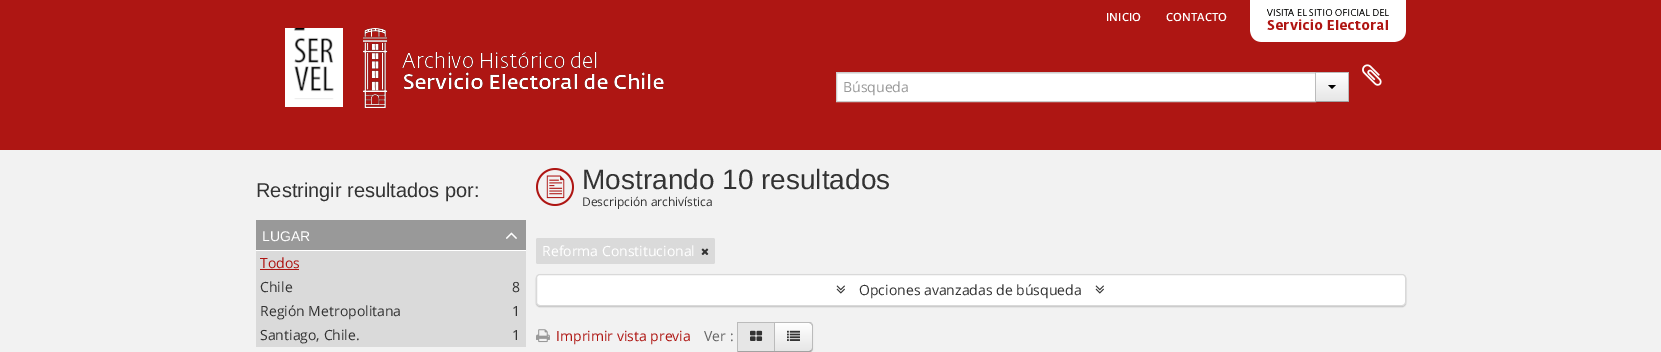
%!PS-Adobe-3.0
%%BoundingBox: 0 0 1661 352
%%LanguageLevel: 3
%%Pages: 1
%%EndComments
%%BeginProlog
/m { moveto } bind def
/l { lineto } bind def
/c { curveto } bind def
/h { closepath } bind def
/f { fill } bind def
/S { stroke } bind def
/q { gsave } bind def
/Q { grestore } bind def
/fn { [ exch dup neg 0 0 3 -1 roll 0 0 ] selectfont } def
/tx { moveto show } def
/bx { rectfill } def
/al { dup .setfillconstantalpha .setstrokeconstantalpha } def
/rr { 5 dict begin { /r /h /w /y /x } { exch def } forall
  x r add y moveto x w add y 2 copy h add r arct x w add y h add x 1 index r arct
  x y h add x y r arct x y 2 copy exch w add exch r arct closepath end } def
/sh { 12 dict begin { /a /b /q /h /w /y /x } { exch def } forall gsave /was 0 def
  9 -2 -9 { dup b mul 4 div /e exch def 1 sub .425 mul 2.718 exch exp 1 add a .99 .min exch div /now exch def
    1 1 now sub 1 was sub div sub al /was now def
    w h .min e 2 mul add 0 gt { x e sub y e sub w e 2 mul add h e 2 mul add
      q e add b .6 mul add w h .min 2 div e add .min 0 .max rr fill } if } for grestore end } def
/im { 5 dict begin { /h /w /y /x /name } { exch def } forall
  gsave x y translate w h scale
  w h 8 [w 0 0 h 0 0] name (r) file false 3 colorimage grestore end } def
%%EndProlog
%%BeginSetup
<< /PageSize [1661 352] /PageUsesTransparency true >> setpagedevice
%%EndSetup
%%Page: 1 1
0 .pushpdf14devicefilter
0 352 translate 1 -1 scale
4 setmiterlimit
0.949 setgray
0 0 1661 352 bx
0.682 0.086 0.075 setrgbcolor
0 0 1661 150 bx
/OpenSans-SemiBold 11.25 fn
1 setgray
(INICIO) 1106 21 tx
(CONTACTO) 1166 21 tx
(image0.raw) 1250 0 156 42 im
(image1.raw) 285 28 379 80 im
(image2.raw) 1362 64 20 22 im
837 74 478 27 bx
0.925 setgray
837 73 478 1 bx
0.8 setgray
836.5 72.5 479 29 rectstroke
/OpenSans-Regular 14 fn
0.6 setgray
(Búsqueda) 843 92 tx
q 1316 73 m 1348 73 l 1348 101 l 1316 101 l h clip newpath
<< /ShadingType 2 /ColorSpace /DeviceRGB /Coords [1332 73 1332 101] /Extend [true true] /Function << /FunctionType 2 /Domain [0 1] /C0 [1 1 1] /C1 [0.902 0.902 0.902] /N 1 >> >> shfill Q
0.733 setgray
1315 72 34 1 bx
1348 72 1 30 bx
0.635 setgray
1315 101 34 1 bx
0.733 setgray
1315 72 1 30 bx
0 setgray
1328 85 m 1336 85 l 1332 89 l h f
/LiberationSans-Regular 20 fn
0.2 setgray
(Restringir resultados por:) 256 197 tx
1 setgray
256 250 270 1 bx
0.6 setgray
256 220 270 30 bx
/LiberationSans-Regular 14 fn
1 setgray
(LUGAR) 262 241 tx
(image3.raw) 506 232 11 7 im
0.855 setgray
256 251 270 96 bx
/OpenSans-Regular 14 fn
0.682 0.086 0.075 setrgbcolor
(Todos) 260 268 tx
260 269 39 1 bx
0.2 setgray
(Chile) 260 292 tx
(8) 512 292 tx
(Región Metropolitana) 260 316 tx
(1) 512 316 tx
(Santiago, Chile.) 260 340 tx
(1) 512 340 tx
(image4.raw) 536 168 38 38 im
/LiberationSans-Regular 28 fn
(Mostrando 10 resultados) 582 189 tx
/OpenSans-Regular 12 fn
(Descripción archivística) 582 206 tx
0.855 setgray
536 238 179 26 2 rr f
/OpenSans-Regular 14 fn
1 setgray
(Reforma Constitucional) 542 256 tx
(image5.raw) 701 248 8 7 im
0 setgray
536 275 870 32 4 0.5 0.2 sh
1 setgray
536.5 274.5 869 31 3.5 rr q f Q
0.851 setgray
S
(image6.raw) 836 285 9 9 im
0.2 setgray
(Opciones avanzadas de búsqueda) 859 295 tx
(image6.raw) 1095 285 9 9 im
(image7.raw) 536 329 14 14 im
0.682 0.086 0.075 setrgbcolor
(Imprimir vista previa) 556 341 tx
0.4 setgray
(Ver :) 704 341 tx
0 setgray
774 323 39 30 4 1 0.05 sh
0.902 setgray
738 323 36 28 bx
q
774 322 m 809 322 l 811 322 813 324 813 326 c 813 348 l 813 350 811 352 809 352 c 774 352 l h clip newpath
q 775 323 m 813 323 l 813 351 l 775 351 l h clip newpath
<< /ShadingType 2 /ColorSpace /DeviceRGB /Coords [794 323 794 351] /Extend [true true] /Function << /FunctionType 2 /Domain [0 1] /C0 [1 1 1] /C1 [0.902 0.902 0.902] /N 1 >> >> shfill Q
Q
0.733 setgray
774 322 m 775 323 l 809 323 l 810 323 810.5 323.5 811 324 c 812 323 l 811 322.5 810 322 809 322 c h f
737 322 38 1 bx
813 348 m 813 326 l 813 325 812.5 324 812 323 c 811 324 l 811.5 324.5 812 325 812 326 c 812 348 l 812 349 811.5 349.5 811 350 c 812 351 l 812.5 350 813 349 813 348 c h f
0.635 setgray
809 352 m 810 352 811 351.5 812 351 c 811 350 l 810.5 350.5 810 351 809 351 c 775 351 l 774 352 l h f
0.733 setgray
774 322 1 30 bx
0.635 setgray
737 351 38 1 bx
0.733 setgray
737 322 1 30 bx
(image8.raw) 750 330 13 11 im
(image9.raw) 787 330 13 11 im
.poppdf14devicefilter showpage
%%EOF
